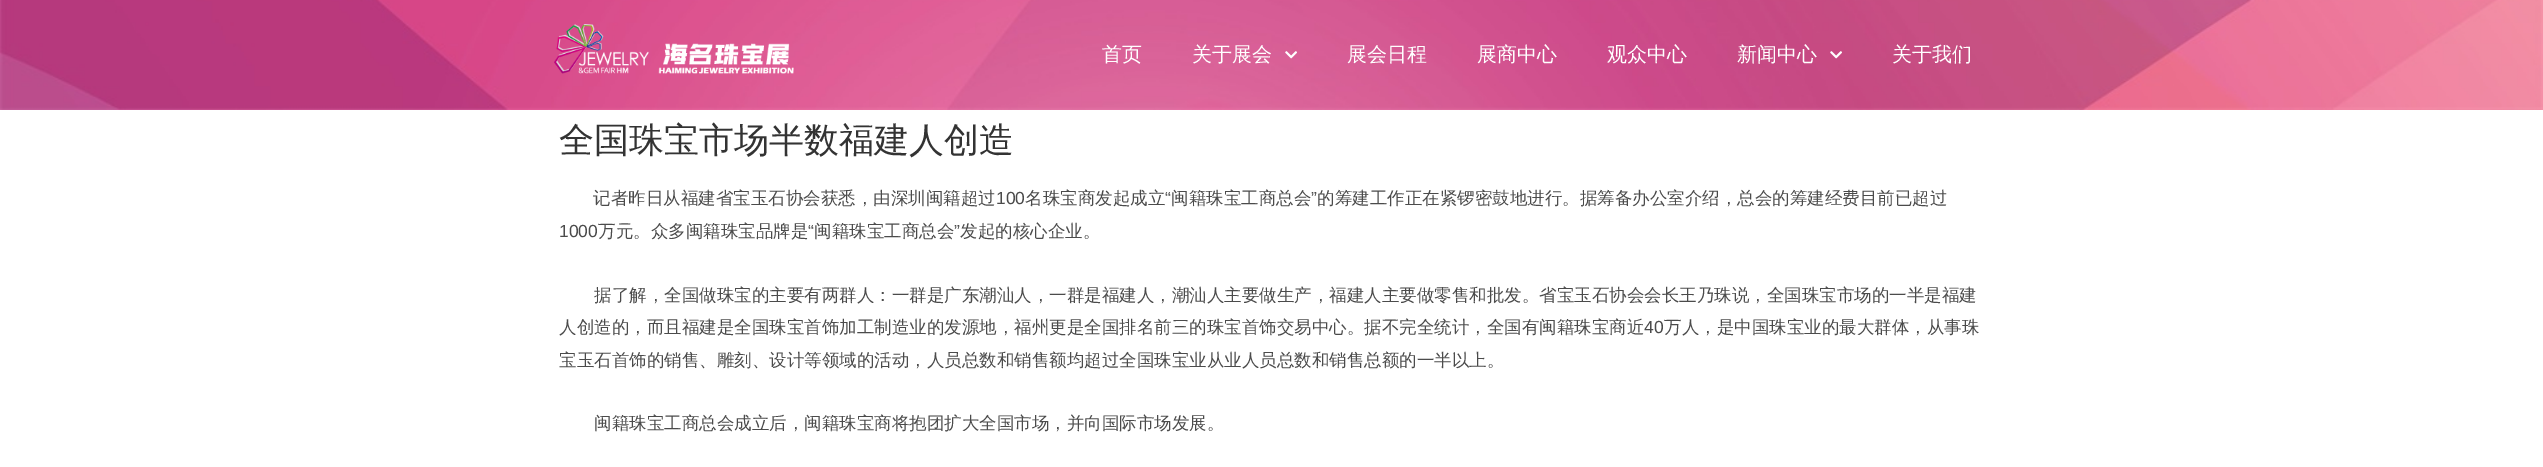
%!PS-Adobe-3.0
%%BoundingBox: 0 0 2543 467
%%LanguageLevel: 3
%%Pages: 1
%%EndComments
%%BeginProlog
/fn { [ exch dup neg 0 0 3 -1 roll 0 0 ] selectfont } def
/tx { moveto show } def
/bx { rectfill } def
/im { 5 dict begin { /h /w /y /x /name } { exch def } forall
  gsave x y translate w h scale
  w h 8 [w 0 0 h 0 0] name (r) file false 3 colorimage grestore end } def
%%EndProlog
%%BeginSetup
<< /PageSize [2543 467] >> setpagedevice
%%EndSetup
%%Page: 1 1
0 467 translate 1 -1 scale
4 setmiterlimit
1 setgray
0 0 2543 467 bx
(image0.raw) 0 0 2543 110 im
(image1.raw) 554 24 240 50 im
/WenQuanYiZenHei-Medium 20 fn
(首页) 1102 61 tx
(关于展会) 1192 61 tx
(image2.raw) 1285 51 12 8 im
(展会日程) 1347 61 tx
(展商中心) 1477 61 tx
(观众中心) 1607 61 tx
(新闻中心) 1737 61 tx
(image3.raw) 1830 51 12 8 im
(关于我们) 1892 61 tx
/WenQuanYiZenHei-Medium 35 fn
0.2 setgray
(全国珠宝市场半数福建人创造) 559 152 tx
/WenQuanYiZenHei-Medium 17.5 fn
0.294 setgray
(记者昨日从福建省宝玉石协会获悉，由深圳闽籍超过) 593 204 tx
/LiberationSans-Regular 17.5 fn
(100) 996 204 tx
/WenQuanYiZenHei-Medium 17.5 fn
(名珠宝商发起成立) 1025 204 tx
/LiberationSans-Regular 17.5 fn
(“) 1165 204 tx
/WenQuanYiZenHei-Medium 17.5 fn
(闽籍珠宝工商总会) 1171 204 tx
/LiberationSans-Regular 17.5 fn
(”) 1311 204 tx
/WenQuanYiZenHei-Medium 17.5 fn
(的筹建工作正在紧锣密鼓地进行。据筹备办公室介绍，总会的筹建经费目前已超过) 1317 204 tx
/LiberationSans-Regular 17.5 fn
(1000) 559 237 tx
/WenQuanYiZenHei-Medium 17.5 fn
(万元。众多闽籍珠宝品牌是) 598 237 tx
/LiberationSans-Regular 17.5 fn
(“) 808 237 tx
/WenQuanYiZenHei-Medium 17.5 fn
(闽籍珠宝工商总会) 814 237 tx
/LiberationSans-Regular 17.5 fn
(”) 954 237 tx
/WenQuanYiZenHei-Medium 17.5 fn
(发起的核心企业。) 960 237 tx
(据了解，全国做珠宝的主要有两群人：一群是广东潮汕人，一群是福建人，潮汕人主要做生产，福建人主要做零售和批发。省宝玉石协会会长王乃珠说，全国珠宝市场的一半是福建) 594 301 tx
(人创造的，而且福建是全国珠宝首饰加工制造业的发源地，福州更是全国排名前三的珠宝首饰交易中心。据不完全统计，全国有闽籍珠宝商近) 559 333 tx
/LiberationSans-Regular 17.5 fn
(40) 1644 333 tx
/WenQuanYiZenHei-Medium 17.5 fn
(万人，是中国珠宝业的最大群体，从事珠) 1664 333 tx
(宝玉石首饰的销售、雕刻、设计等领域的活动，人员总数和销售额均超过全国珠宝业从业人员总数和销售总额的一半以上。) 559 366 tx
(闽籍珠宝工商总会成立后，闽籍珠宝商将抱团扩大全国市场，并向国际市场发展。) 594 429 tx
showpage
%%EOF
